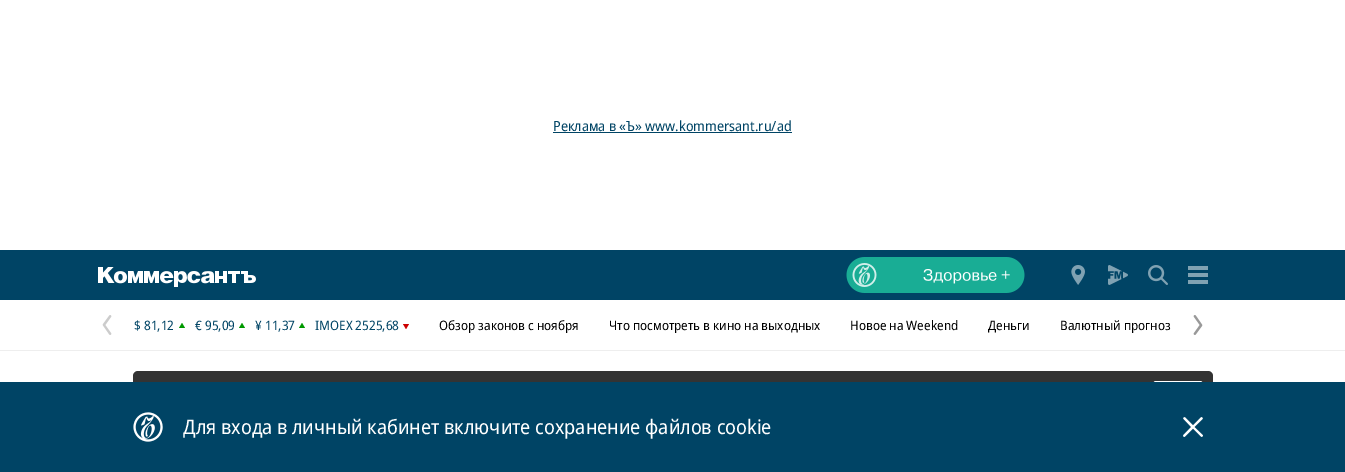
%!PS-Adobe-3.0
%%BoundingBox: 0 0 1345 472
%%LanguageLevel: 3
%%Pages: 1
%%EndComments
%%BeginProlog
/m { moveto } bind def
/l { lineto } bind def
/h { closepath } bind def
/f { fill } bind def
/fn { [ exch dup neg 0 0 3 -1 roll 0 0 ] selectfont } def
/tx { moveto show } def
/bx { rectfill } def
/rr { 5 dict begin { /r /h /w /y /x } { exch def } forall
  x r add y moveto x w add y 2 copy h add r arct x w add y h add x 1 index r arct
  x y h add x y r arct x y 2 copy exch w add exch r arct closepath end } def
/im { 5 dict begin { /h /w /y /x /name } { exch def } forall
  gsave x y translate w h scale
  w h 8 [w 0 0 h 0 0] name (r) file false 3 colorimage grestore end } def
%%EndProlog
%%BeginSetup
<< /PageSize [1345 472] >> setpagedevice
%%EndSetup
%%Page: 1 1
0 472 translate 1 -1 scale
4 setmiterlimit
1 setgray
0 0 1345 472 bx
/NotoSans-Regular 14 fn
0 0.267 0.396 setrgbcolor
(Реклама в «Ъ» www.kommersant.ru/ad) 553 131 tx
553 132 239 1 bx
0 250 1345 50 bx
(image0.raw) 98 267 158 20 im
(image1.raw) 846 257 179 36 im
(image2.raw) 1071 265 14 20 im
(image3.raw) 1108 265 20 20 im
(image4.raw) 1148 265 20 20 im
(image5.raw) 1188 266 20 18 im
0.933 setgray
0 350 1345 1 bx
(image6.raw) 102 315 10 20 im
/NotoSans-Regular 13 fn
0 0.267 0.396 setrgbcolor
($ 81,12) 134 330 tx
0 0.6 0 setrgbcolor
185 328 m 179 328 l 182 323 l h f
0 0.267 0.396 setrgbcolor
(€ 95,09) 195 330 tx
0 0.6 0 setrgbcolor
245 328 m 239 328 l 242 323 l h f
0 0.267 0.396 setrgbcolor
(¥ 11,37) 255 330 tx
0 0.6 0 setrgbcolor
305 328 m 299 328 l 302 323 l h f
0 0.267 0.396 setrgbcolor
(IMOEX 2525,68) 315 330 tx
0.8 0 0 setrgbcolor
403 324 m 409 324 l 406 329 l h f
0 setgray
(Обзор законов с ноября) 439 330 tx
(Что посмотреть в кино на выходных) 609 330 tx
(Новое на Weekend) 850 330 tx
(Деньги) 988 330 tx
(Валютный прогноз) 1060 330 tx
(image7.raw) 1193 315 10 20 im
0.2 setgray
133 371 1080 55 5 rr f
1 setgray
1153 381 50 35 3 rr f
0 0.267 0.396 setrgbcolor
0 382 1345 90 bx
(image8.raw) 133 412 30 30 im
/NotoSans-Regular 20 fn
1 setgray
(Для входа в личный кабинет включите сохранение файлов cookie) 183 434 tx
(image9.raw) 1183 417 20 20 im
showpage
%%EOF
